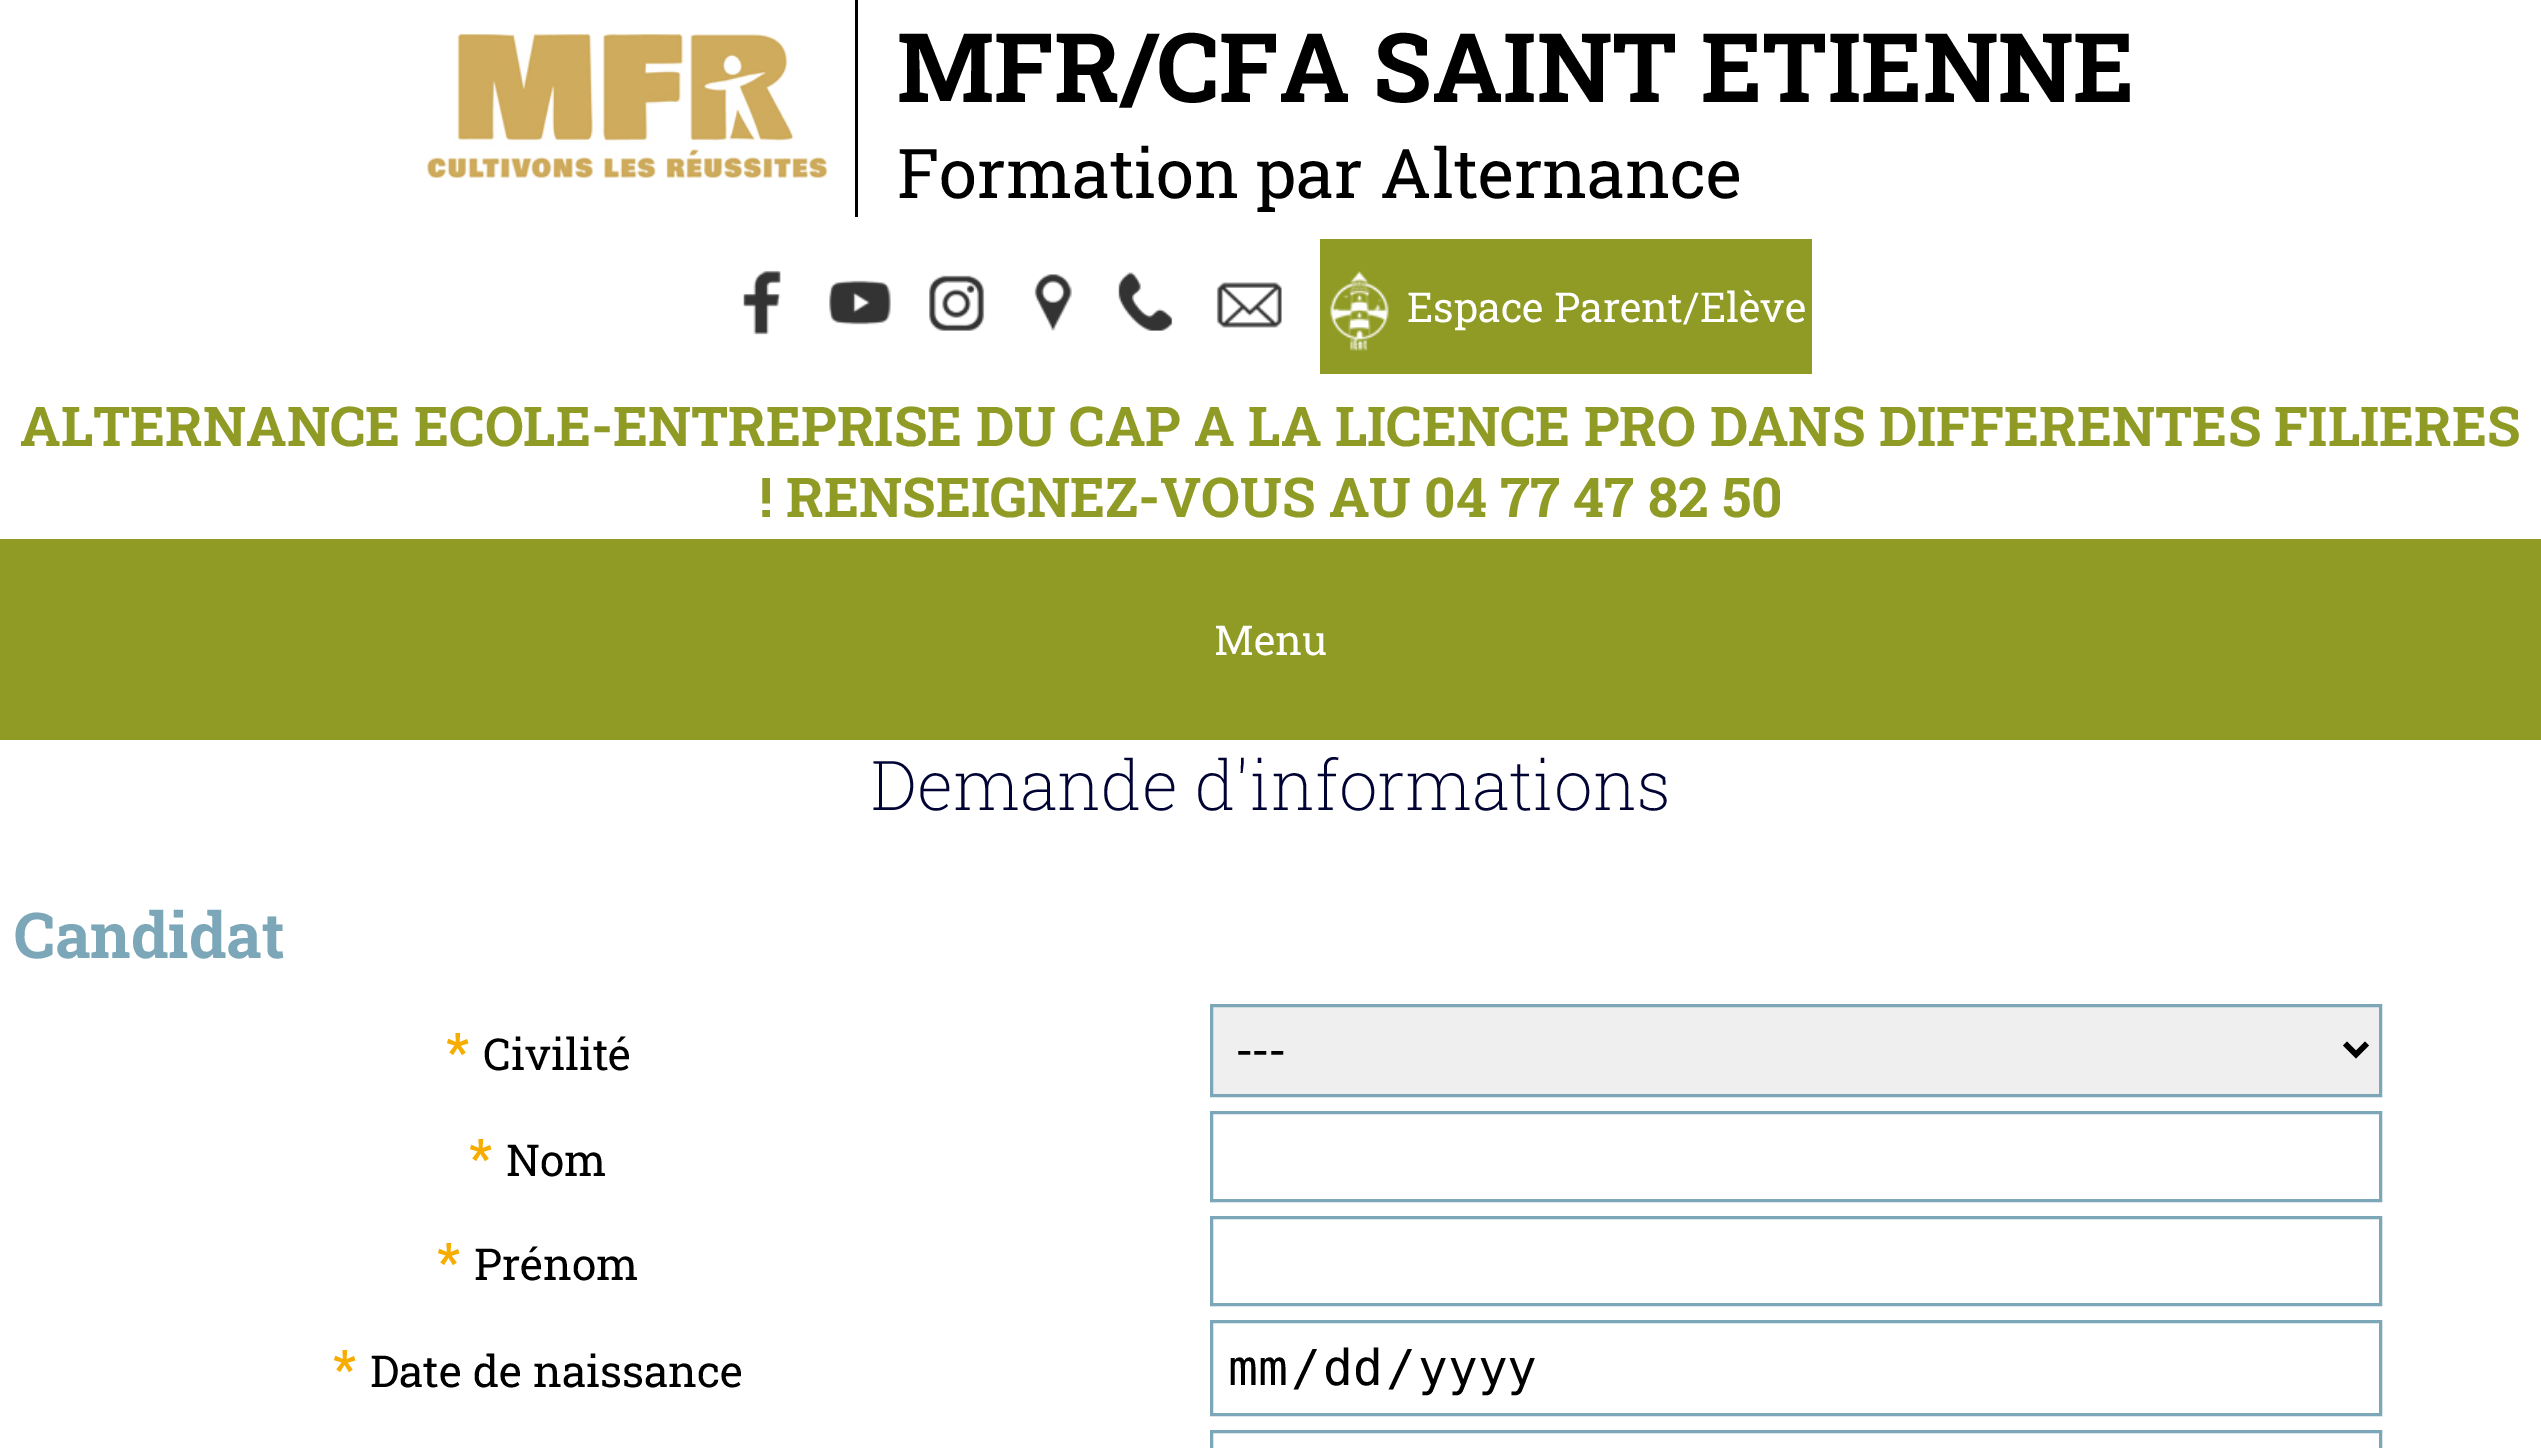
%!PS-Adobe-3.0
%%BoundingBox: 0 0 2541 1448
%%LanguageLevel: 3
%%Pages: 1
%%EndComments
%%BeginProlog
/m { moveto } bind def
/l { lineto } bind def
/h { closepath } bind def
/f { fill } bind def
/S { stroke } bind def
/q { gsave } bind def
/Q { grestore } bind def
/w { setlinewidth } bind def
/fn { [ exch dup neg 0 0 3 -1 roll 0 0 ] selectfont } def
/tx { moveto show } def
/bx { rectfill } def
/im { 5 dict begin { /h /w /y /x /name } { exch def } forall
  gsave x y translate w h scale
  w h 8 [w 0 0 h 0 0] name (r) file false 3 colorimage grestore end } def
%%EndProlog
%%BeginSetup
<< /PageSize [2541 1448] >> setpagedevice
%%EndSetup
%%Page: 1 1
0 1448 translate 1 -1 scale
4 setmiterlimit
1 setgray
0 0 2541 1448 bx
(image0.raw) 427 34 400 144 im
0 setgray
855 0 3 217 bx
/RobotoSlab-Bold 96.25 fn
(MFR/CFA SAINT ETIENNE) 897 102 tx
/RobotoSlab-Regular 68.75 fn
(Formation par Alternance) 897 198 tx
(image1.raw) 743 270 38 65 im
(image2.raw) 829 280 62 45 im
(image3.raw) 929 275 56 56 im
(image4.raw) 1034 274 38 57 im
(image5.raw) 1118 272 55 59 im
(image6.raw) 1216 282 66 46 im
0.565 0.608 0.145 setrgbcolor
1320 239 492 135 bx
(image7.raw) 1330 271 59 80 im
/RobotoSlab-Regular 41.25 fn
1 setgray
(Espace Parent/Elève) 1407 322 tx
/RobotoSlab-Bold 55 fn
0.565 0.608 0.145 setrgbcolor
(ALTERNANCE ECOLE-ENTREPRISE DU CAP A LA LICENCE PRO DANS DIFFERENTES FILIERES) 20 446 tx
(! RENSEIGNEZ-VOUS AU 04 77 47 82 50) 759 517 tx
0 539 2541 201 bx
/RobotoSlab-Regular 41.25 fn
1 setgray
(Menu) 1214 655 tx
/RobotoSlab-ExtraLight 68.75 fn
0 0.012 0.2 setrgbcolor
(Demande d'informations) 871 810 tx
/RobotoSlab-Bold 63.25 fn
0.486 0.655 0.725 setrgbcolor
(Candidat) 14 958 tx
/RobotoSlab-Bold 52 fn
0.969 0.678 0 setrgbcolor
(*) 446 1070 tx
/RobotoSlab-Regular 44 fn
0 setgray
(Civilité) 483 1070 tx
0.937 setgray
1211.5 1005.5 m 2380.5 1005.5 l 2380.5 1095.5 l 1211.5 1095.5 l h q f Q
0.486 0.655 0.725 setrgbcolor
3 w
S
0 setgray
5.5 w
2345 1043.5 m 2356 1054.5 l 2367 1043.5 l S
/LiberationSans-Regular 49.5 fn
(---) 1236 1066 tx
/RobotoSlab-Bold 52 fn
0.969 0.678 0 setrgbcolor
(*) 469 1176 tx
/RobotoSlab-Regular 44 fn
0 setgray
(Nom) 506 1176 tx
0.486 0.655 0.725 setrgbcolor
3 w
1211.5 1112.5 1169 88 rectstroke
/RobotoSlab-Bold 52 fn
0.969 0.678 0 setrgbcolor
(*) 437 1280 tx
/RobotoSlab-Regular 44 fn
0 setgray
(Prénom) 474 1280 tx
0.486 0.655 0.725 setrgbcolor
1211.5 1217.5 1169 87 rectstroke
/RobotoSlab-Bold 52 fn
0.969 0.678 0 setrgbcolor
(*) 333 1387 tx
/RobotoSlab-Regular 44 fn
0 setgray
(Date de naissance) 370 1387 tx
0.486 0.655 0.725 setrgbcolor
1211.5 1321.5 1169 93 rectstroke
/DejaVuSansMono-Regular 49.5 fn
0 setgray
(mm) 1228 1385 tx
(/) 1291 1385 tx
(dd) 1323 1385 tx
(/) 1386 1385 tx
(yyyy) 1418 1385 tx
0.486 0.655 0.725 setrgbcolor
1211.5 1431.5 1169 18 rectstroke
showpage
%%EOF
